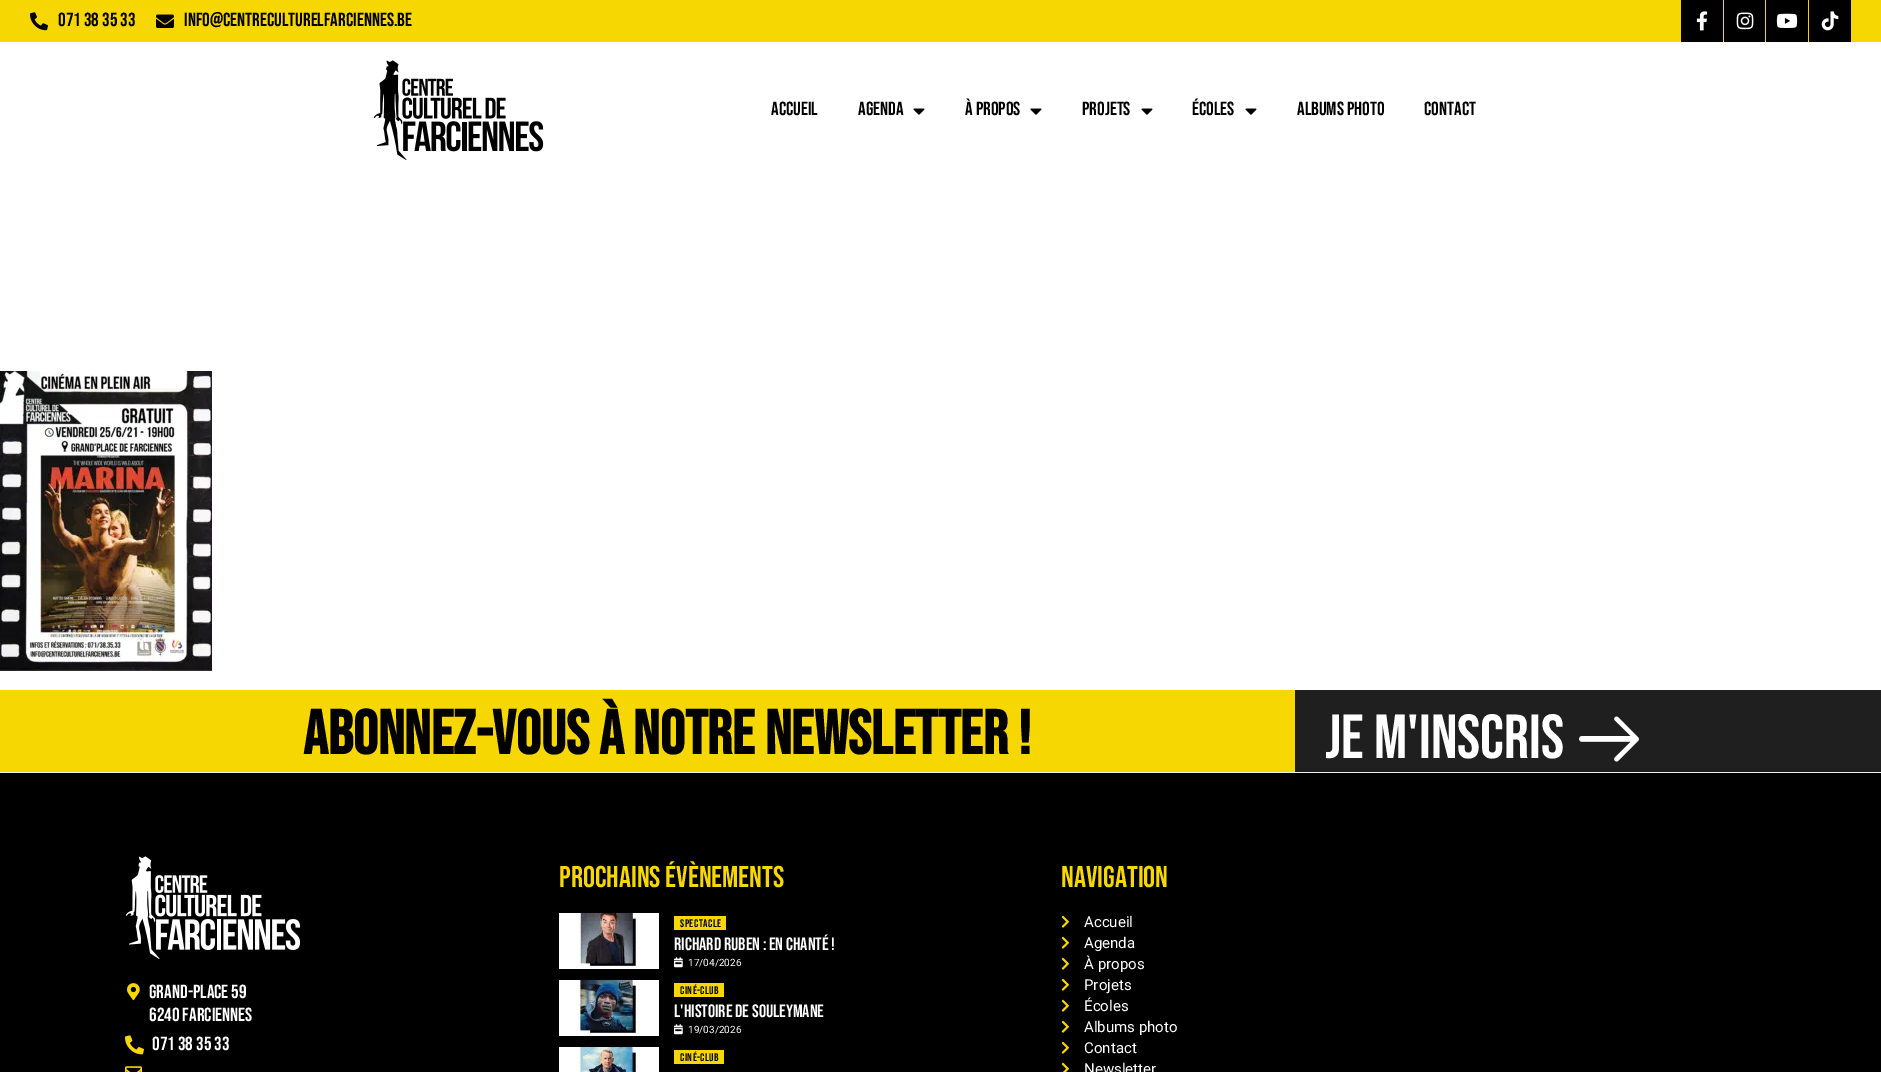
%!PS-Adobe-3.0
%%BoundingBox: 0 0 1881 1072
%%LanguageLevel: 3
%%Pages: 1
%%EndComments
%%BeginProlog
/m { moveto } bind def
/fn { [ exch dup neg 0 0 3 -1 roll 0 0 ] selectfont } def
/tx { moveto show } def
/bx { rectfill } def
/im { 5 dict begin { /h /w /y /x /name } { exch def } forall
  gsave x y translate w h scale
  w h 8 [w 0 0 h 0 0] name (r) file false 3 colorimage grestore end } def
%%EndProlog
%%BeginSetup
<< /PageSize [1881 1072] >> setpagedevice
%%EndSetup
%%Page: 1 1
0 1072 translate 1 -1 scale
4 setmiterlimit
1 setgray
0 0 1881 1072 bx
0.969 0.843 0.008 setrgbcolor
0 0 1881 42 bx
(image0.raw) 30 12 18 19 im
/BebasNeue-Regular 19 fn
0 setgray
(071 38 35 33) 58 26 tx
(image1.raw) 156 14 18 14 im
(info@centreculturelfarciennes.be) 184 26 tx
1681 0 42 42 bx
(image2.raw) 1696 11 12 20 im
1724 0 41 42 bx
(image3.raw) 1736 12 18 18 im
1766 0 42 42 bx
(image4.raw) 1776 13 22 15 im
1809 0 42 42 bx
(image5.raw) 1821 11 18 20 im
(image6.raw) 373 60 171 101 im
(ACCUEIL) 771 115 tx
(AGENDA) 858 115 tx
(image7.raw) 913 108 12 7 im
(À PROPOS) 965 115 tx
(image7.raw) 1030 108 12 7 im
(PROJETS) 1082 115 tx
(image7.raw) 1141 108 12 7 im
(ÉCOLES) 1192 115 tx
(image7.raw) 1245 108 12 7 im
(ALBUMS PHOTO) 1297 115 tx
(CONTACT) 1424 115 tx
(image8.raw) 0 371 212 300 im
0.969 0.843 0.008 setrgbcolor
0 690 1295 82 bx
/BebasNeue-Bold 62 fn
0 setgray
(ABONNEZ-VOUS À NOTRE NEWSLETTER !) 303 754 tx
0.122 setgray
1295 690 586 82 bx
/BebasNeue-Regular 62 fn
1 setgray
(JE M'INSCRIS) 1325 758 tx
(image9.raw) 1579 716 60 46 im
0 setgray
0 773 1881 299 bx
0.929 setgray
0 772 1881 1 bx
(image10.raw) 125 856 176 103 im
(image11.raw) 127 983 13 18 im
/BebasNeue-Regular 19 fn
1 setgray
(Grand-Place 59) 149 998 tx
(6240 Farciennes) 149 1021 tx
(image12.raw) 125 1035 19 20 im
(071 38 35 33) 152 1050 tx
(image13.raw) 125 1066 17 6 im
/BebasNeue-Regular 30 fn
0.969 0.843 0.008 setrgbcolor
(PROCHAINS ÉVÈNEMENTS) 559 887 tx
1 setgray
559 913 100 56 bx
(image14.raw) 579 913 60 56 im
0.969 0.843 0.008 setrgbcolor
674 916 52 14 bx
/BebasNeue-Regular 11 fn
0 setgray
680 927 m 0.5 0 (Spectacle) ashow
/BebasNeue-Regular 18 fn
1 setgray
(Richard Ruben : En chanté !) 674 950 tx
(image15.raw) 674 957 9 11 im
/Roboto-Regular 10 fn
(17/04/2026) 688 966 tx
559 980 100 56 bx
(image16.raw) 575 980 64 56 im
0.969 0.843 0.008 setrgbcolor
674 983 50 14 bx
/BebasNeue-Regular 11 fn
0 setgray
680 994 m 0.5 0 (Ciné-Club) ashow
/BebasNeue-Regular 18 fn
1 setgray
(L'histoire de Souleymane) 674 1017 tx
(image15.raw) 674 1024 9 11 im
/Roboto-Regular 10 fn
(19/03/2026) 688 1033 tx
559 1047 100 25 bx
(image17.raw) 578 1047 61 25 im
0.969 0.843 0.008 setrgbcolor
674 1050 50 14 bx
/BebasNeue-Regular 11 fn
0 setgray
680 1061 m 0.5 0 (Ciné-Club) ashow
/BebasNeue-Regular 30 fn
0.969 0.843 0.008 setrgbcolor
(NAVIGATION) 1061 887 tx
(image18.raw) 1061 915 8 13 im
/Roboto-Regular 15 fn
1 setgray
(Accueil) 1084 927 tx
(image18.raw) 1061 936 8 13 im
(Agenda) 1084 948 tx
(image18.raw) 1061 957 8 13 im
(À propos) 1084 969 tx
(image18.raw) 1061 978 8 13 im
(Projets) 1084 990 tx
(image18.raw) 1061 999 8 13 im
(Écoles) 1084 1011 tx
(image18.raw) 1061 1020 8 13 im
(Albums photo) 1084 1032 tx
(image18.raw) 1061 1041 8 13 im
(Contact) 1084 1053 tx
(image19.raw) 1061 1062 8 10 im
(Newsletter) 1084 1074 tx
showpage
%%EOF
